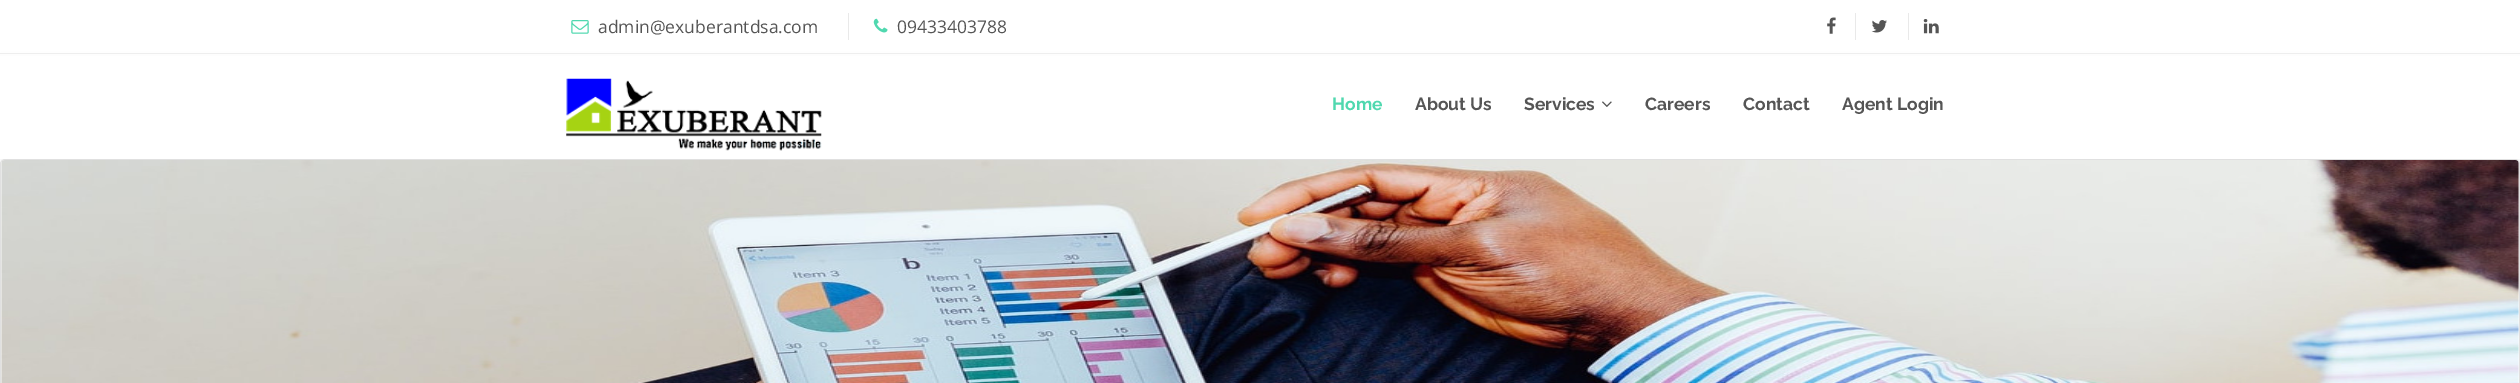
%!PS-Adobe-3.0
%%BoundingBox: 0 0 2520 383
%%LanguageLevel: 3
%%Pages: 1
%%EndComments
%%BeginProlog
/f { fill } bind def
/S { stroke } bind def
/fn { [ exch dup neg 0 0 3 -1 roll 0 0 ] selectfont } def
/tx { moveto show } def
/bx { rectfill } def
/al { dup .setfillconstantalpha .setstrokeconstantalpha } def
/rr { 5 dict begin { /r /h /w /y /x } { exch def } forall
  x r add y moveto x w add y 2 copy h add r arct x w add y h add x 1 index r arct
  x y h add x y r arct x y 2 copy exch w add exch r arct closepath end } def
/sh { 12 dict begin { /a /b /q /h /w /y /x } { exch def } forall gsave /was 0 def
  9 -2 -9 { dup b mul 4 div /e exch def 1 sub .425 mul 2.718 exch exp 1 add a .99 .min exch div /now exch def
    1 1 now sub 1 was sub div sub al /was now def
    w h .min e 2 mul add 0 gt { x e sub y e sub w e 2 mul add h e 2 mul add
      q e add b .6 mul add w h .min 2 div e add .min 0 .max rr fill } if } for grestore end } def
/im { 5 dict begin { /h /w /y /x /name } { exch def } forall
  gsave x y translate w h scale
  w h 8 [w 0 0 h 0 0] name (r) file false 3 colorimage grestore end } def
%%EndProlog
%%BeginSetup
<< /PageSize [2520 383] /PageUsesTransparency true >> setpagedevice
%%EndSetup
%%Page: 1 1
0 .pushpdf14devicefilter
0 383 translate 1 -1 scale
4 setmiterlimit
1 setgray
0 0 2520 383 bx
0 setgray
0 61 2520 105 0 5.5 0.06 sh
0.933 setgray
0 53 2520 1 bx
(image0.raw) 571 20 18 14 im
/OpenSans-Regular 17.5 fn
0.333 setgray
(admin@exuberantdsa.com) 598 33 tx
0.914 setgray
848 13 1 27 bx
(image1.raw) 873 18 15 15 im
0.333 setgray
(09433403788) 897 33 tx
(image2.raw) 1827 17 9 17 im
0.914 setgray
1855 13 1 27 bx
(image3.raw) 1871 20 16 13 im
1908 13 1 27 bx
(image4.raw) 1923 19 16 15 im
1 setgray
0 56 2520 103 bx
(image5.raw) 566 78 256 73 im
/Raleway-Bold 17.5 fn
0.314 0.847 0.686 setrgbcolor
(Home) 1332 110 tx
0.333 setgray
(About Us) 1415 110 tx
(Services) 1524 110 tx
(image6.raw) 1602 101 10 6 im
(Careers) 1645 110 tx
(Contact) 1743 110 tx
(Agent Login) 1842 110 tx
1 setgray
0 159 2520 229 5 rr f
0.12 al
0 setgray
0.5 159.5 2519 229 4.5 rr S
1 al
(image7.raw) 1 160 2518 223 im
.poppdf14devicefilter showpage
%%EOF
